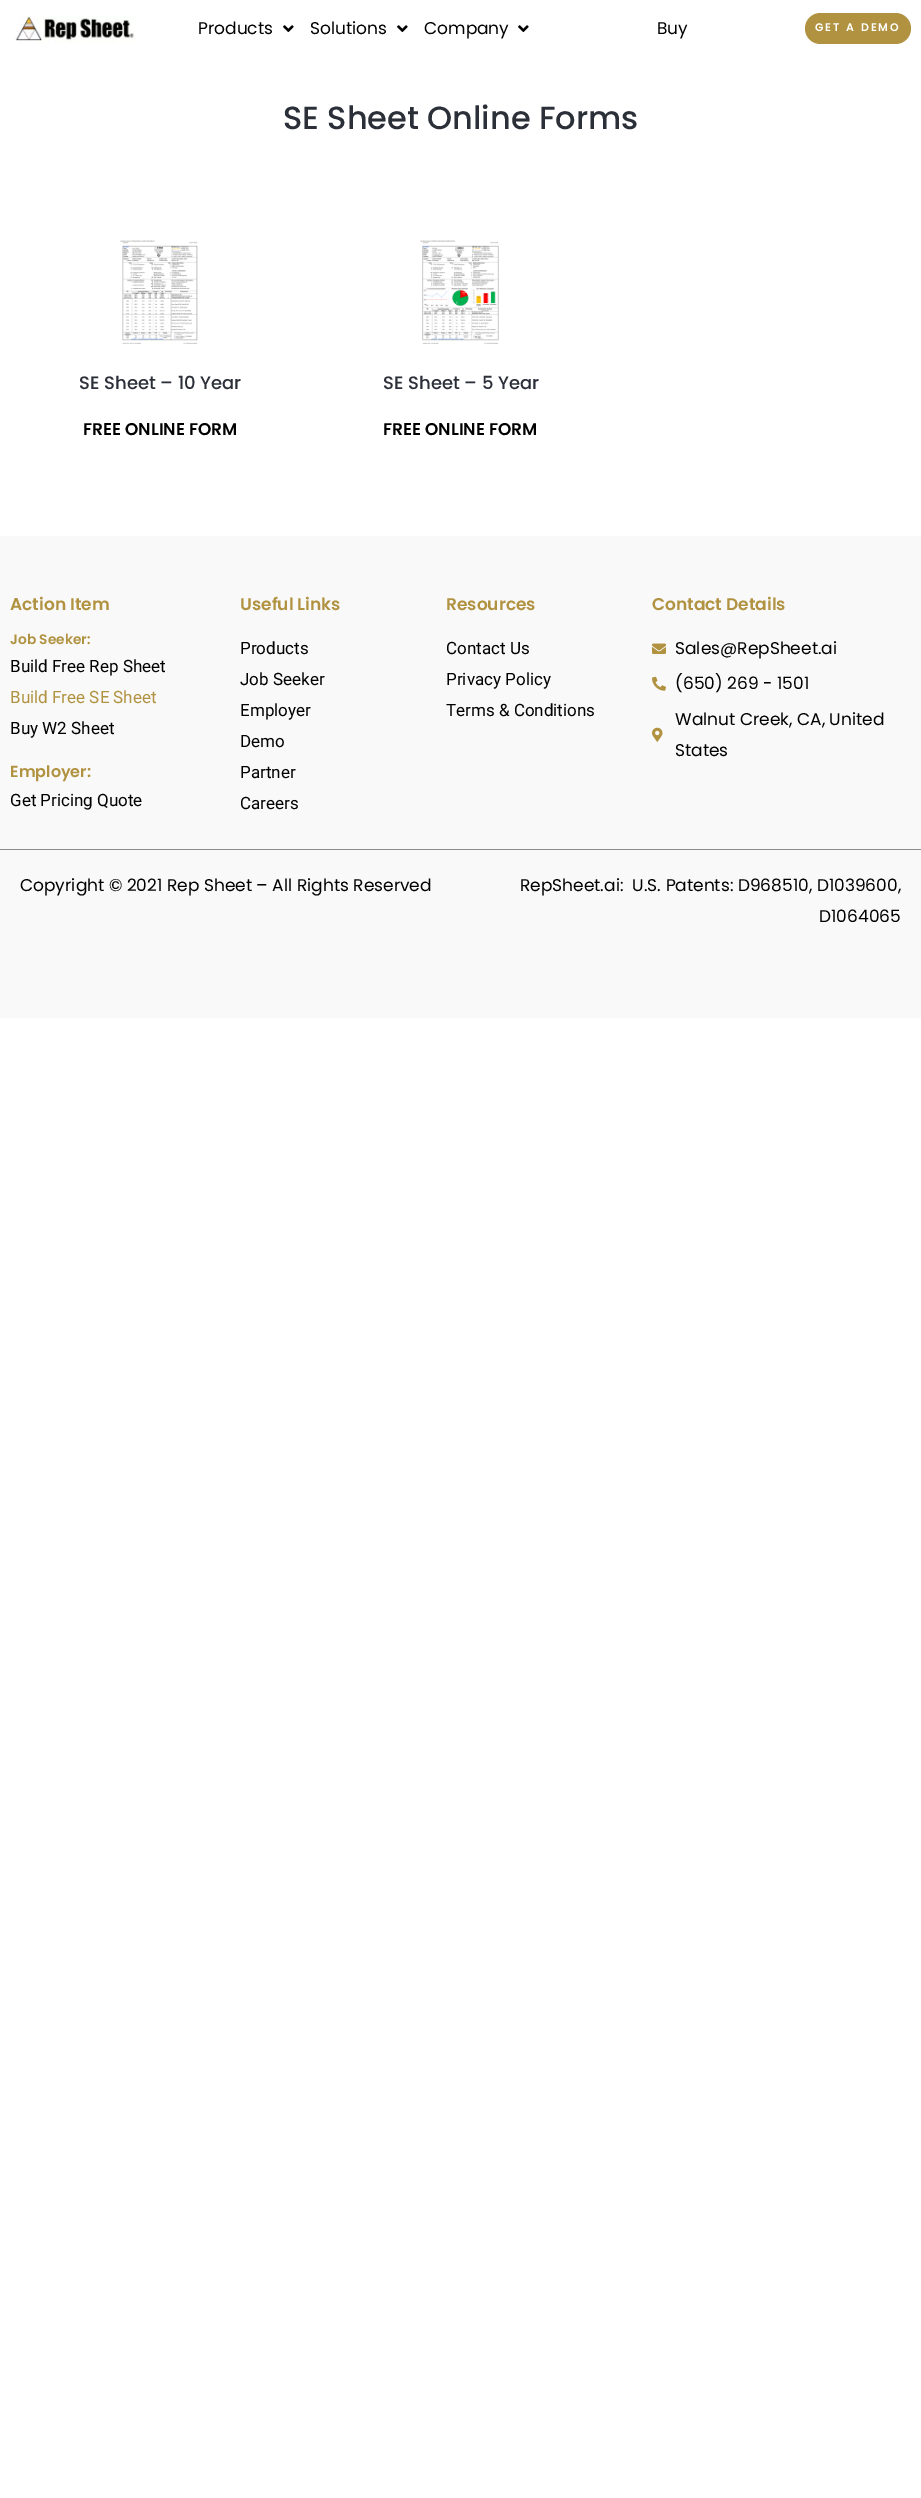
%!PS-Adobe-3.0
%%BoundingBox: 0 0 921 2498
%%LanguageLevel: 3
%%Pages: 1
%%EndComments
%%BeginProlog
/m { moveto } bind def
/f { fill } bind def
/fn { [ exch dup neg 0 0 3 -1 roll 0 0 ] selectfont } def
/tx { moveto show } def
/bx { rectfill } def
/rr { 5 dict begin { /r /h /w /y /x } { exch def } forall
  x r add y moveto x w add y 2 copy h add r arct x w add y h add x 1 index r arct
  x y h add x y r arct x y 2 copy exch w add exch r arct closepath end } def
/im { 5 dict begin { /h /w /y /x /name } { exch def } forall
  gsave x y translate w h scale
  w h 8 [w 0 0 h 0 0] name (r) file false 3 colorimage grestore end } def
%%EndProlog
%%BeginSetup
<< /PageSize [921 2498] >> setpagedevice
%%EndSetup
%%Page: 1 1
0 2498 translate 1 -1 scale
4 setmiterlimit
1 setgray
0 0 921 2498 bx
(image0.raw) 15 16 122 27 im
/Poppins-Regular 17 fn
0 setgray
(Products) 198 34 tx
(image1.raw) 283 25 11 7 im
(Solutions) 310 34 tx
(image1.raw) 397 25 11 7 im
(Company) 424 34 tx
(image1.raw) 518 25 11 7 im
(Buy) 657 34 tx
0.69 0.573 0.251 setrgbcolor
805 13 106 31 15.5 rr f
/Poppins-SemiBold 11 fn
1 setgray
815 31 m 2 0 (GET A DEMO) ashow
/Poppins-Medium 32 fn
0.169 0.184 0.22 setrgbcolor
(SE Sheet Online Forms) 283 129 tx
(image2.raw) 120 240 78 104 im
/Poppins-Medium 18 fn
(SE Sheet – 10 Year) 79 389 tx
/Poppins-SemiBold 17 fn
0 setgray
(FREE ONLINE FORM) 83 435 tx
(image3.raw) 420 240 79 104 im
/Poppins-Medium 18 fn
0.169 0.184 0.22 setrgbcolor
(SE Sheet – 5 Year) 383 389 tx
/Poppins-SemiBold 17 fn
0 setgray
(FREE ONLINE FORM) 383 435 tx
0.976 setgray
0 536 921 313 bx
0.69 0.573 0.251 setrgbcolor
(Action Item) 10 610 tx
/Poppins-SemiBold 13.75 fn
(Job Seeker:) 10 644 tx
/Roboto-Regular 17 fn
0 setgray
(Build Free Rep Sheet) 10 672 tx
0.69 0.573 0.251 setrgbcolor
(Build Free SE Sheet) 10 703 tx
0 setgray
(Buy W2 Sheet) 10 734 tx
/Poppins-SemiBold 16 fn
0.69 0.573 0.251 setrgbcolor
(Employer:) 10 777 tx
/Roboto-Regular 17 fn
0 setgray
(Get Pricing Quote) 10 806 tx
/Poppins-SemiBold 17 fn
0.69 0.573 0.251 setrgbcolor
(Useful Links) 240 610 tx
/Roboto-Regular 17 fn
0 setgray
(Products) 240 654 tx
(Job Seeker) 240 685 tx
(Employer) 240 716 tx
(Demo) 240 747 tx
(Partner) 240 778 tx
(Careers) 240 809 tx
/Poppins-SemiBold 17 fn
0.69 0.573 0.251 setrgbcolor
(Resources) 446 610 tx
/Roboto-Regular 17 fn
0 setgray
(Contact Us) 446 654 tx
(Privacy Policy) 446 685 tx
(Terms & Conditions) 446 716 tx
/Poppins-SemiBold 17 fn
0.69 0.573 0.251 setrgbcolor
(Contact Details) 652 610 tx
(image4.raw) 652 643 14 11 im
/Poppins-Regular 17 fn
0 setgray
(Sales@RepSheet.ai) 675 654 tx
(image5.raw) 652 676 14 15 im
(\(650\) 269 - 1501) 675 689 tx
(image6.raw) 652 727 11 15 im
(Walnut Creek, CA, United) 675 725 tx
(States) 675 756 tx
0.976 setgray
0 850 921 168 bx
0.561 0.545 0.545 setrgbcolor
0 849 921 1 bx
0 setgray
(Copyright © 2021 Rep Sheet – All Rights Reserved) 20 891 tx
(RepSheet.ai:  U.S. Patents: D968510, D1039600,) 520 891 tx
(D1064065) 819 922 tx
showpage
%%EOF
